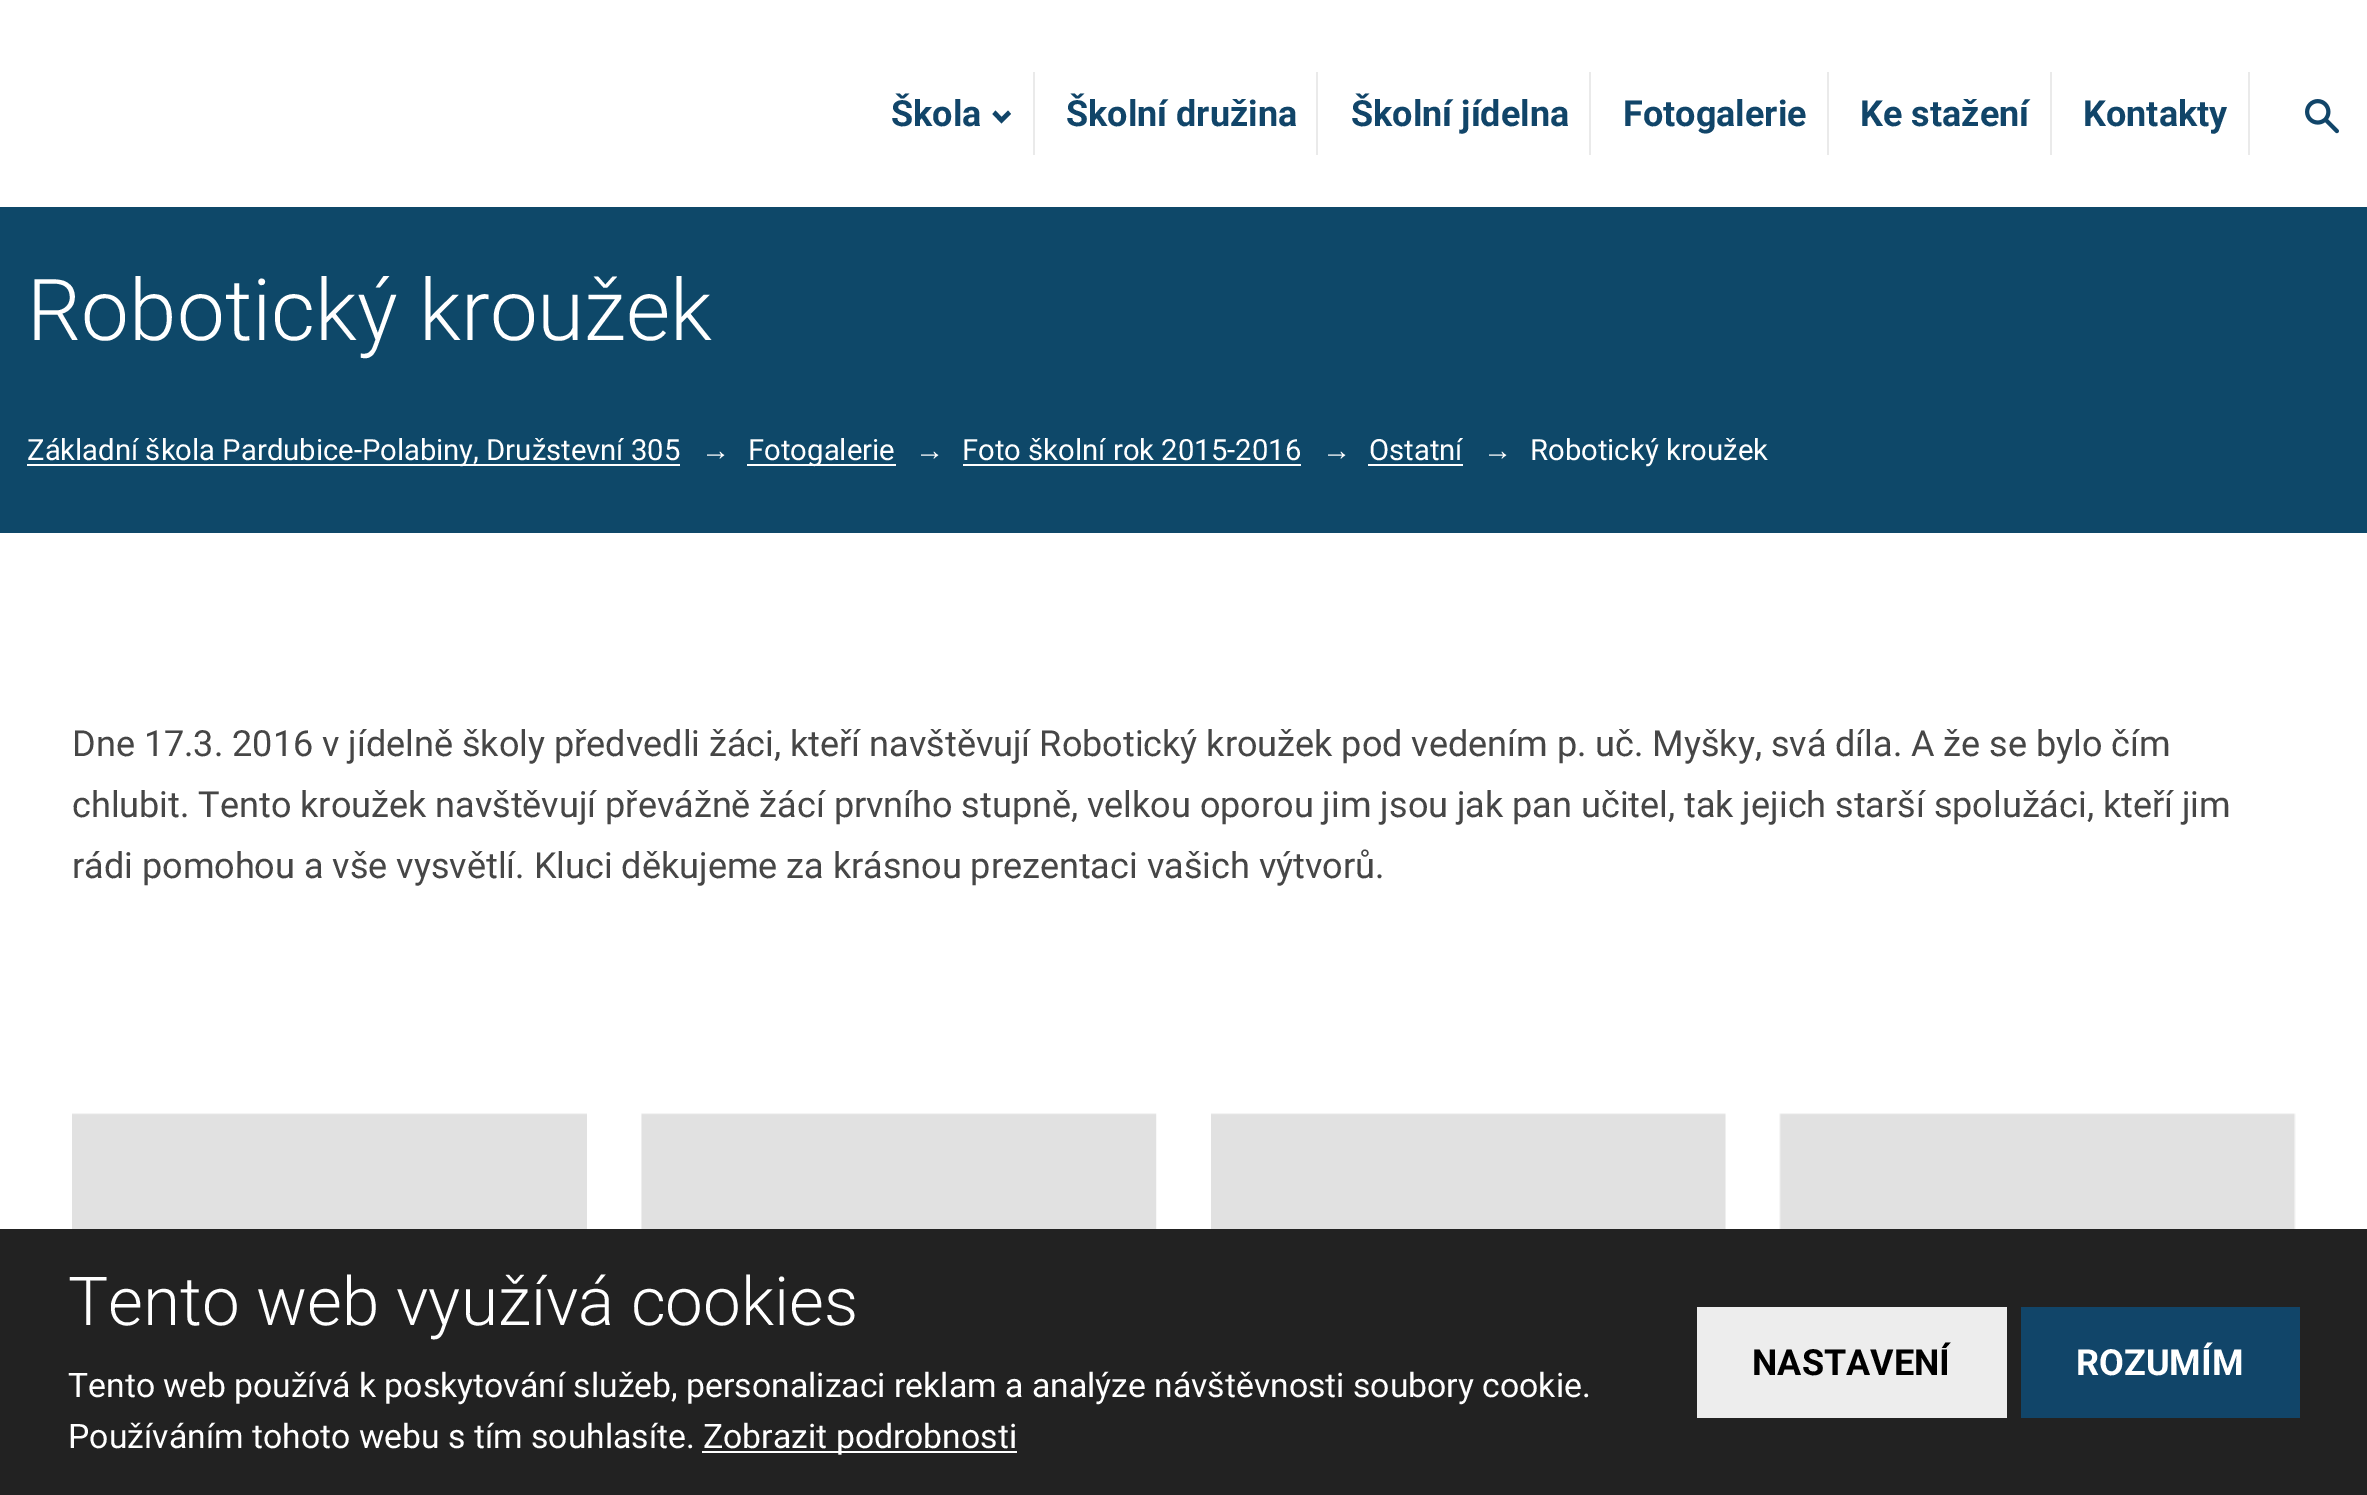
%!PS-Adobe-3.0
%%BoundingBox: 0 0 2367 1495
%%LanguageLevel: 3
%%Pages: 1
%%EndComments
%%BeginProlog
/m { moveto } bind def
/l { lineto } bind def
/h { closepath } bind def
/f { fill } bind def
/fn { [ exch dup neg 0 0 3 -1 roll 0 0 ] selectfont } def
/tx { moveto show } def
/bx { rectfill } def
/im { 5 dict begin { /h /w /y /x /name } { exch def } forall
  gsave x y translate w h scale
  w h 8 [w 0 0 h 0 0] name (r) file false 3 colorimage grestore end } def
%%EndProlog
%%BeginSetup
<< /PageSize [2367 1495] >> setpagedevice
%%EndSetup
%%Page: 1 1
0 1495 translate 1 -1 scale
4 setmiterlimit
1 setgray
0 0 2367 1495 bx
/Roboto-Bold 36 fn
0.067 0.271 0.412 setrgbcolor
(Škola) 891 126 tx
992.5 114 m 1001.5 123.5 l 1011 114 l 1008 110.5 l 1001.5 117 l 995.5 110.5 l h f
0.918 setgray
1033 72 2 83 bx
0.067 0.271 0.412 setrgbcolor
(Školní družina) 1066 126 tx
0.918 setgray
1316 72 2 83 bx
0.067 0.271 0.412 setrgbcolor
(Školní jídelna) 1351 126 tx
0.918 setgray
1589 72 2 83 bx
0.067 0.271 0.412 setrgbcolor
(Fotogalerie) 1623 126 tx
0.918 setgray
1827 72 2 83 bx
0.067 0.271 0.412 setrgbcolor
(Ke stažení) 1860 126 tx
0.918 setgray
2050 72 2 83 bx
0.067 0.271 0.412 setrgbcolor
(Kontakty) 2083 126 tx
0.918 setgray
2248 72 2 83 bx
(image0.raw) 2305 99 34 35 im
0.055 0.282 0.412 setrgbcolor
0 207 2367 326 bx
/Roboto-Light 85.5 fn
1 setgray
(Robotický kroužek) 27 340 tx
27 464 653 2 bx
/Roboto-Regular 29.25 fn
(Základní škola Pardubice-Polabiny, Družstevní 305) 27 460 tx
/LiberationSans-Bold 29.25 fn
(→) 701 460 tx
747 464 149 2 bx
/Roboto-Regular 29.25 fn
(Fotogalerie) 748 460 tx
/LiberationSans-Bold 29.25 fn
(→) 915 460 tx
/Roboto-Regular 29.25 fn
(Foto školní rok 2015-2016) 962 460 tx
963 464 338 2 bx
/LiberationSans-Bold 29.25 fn
(→) 1322 460 tx
/Roboto-Regular 29.25 fn
(Ostatní) 1369 460 tx
1368 464 95 2 bx
/LiberationSans-Bold 29.25 fn
(→) 1483 460 tx
/Roboto-Regular 29.25 fn
(Robotický kroužek) 1530 460 tx
/Roboto-Regular 36 fn
0.275 setgray
(Dne 17.3. 2016 v jídelně školy předvedli žáci, kteří navštěvují Robotický kroužek pod vedením p. uč. Myšky, svá díla. A že se bylo čím) 72 756 tx
(chlubit. Tento kroužek navštěvují převážně žácí prvního stupně, velkou oporou jim jsou jak pan učitel, tak jejich starší spolužáci, kteří jim) 72 817 tx
(rádi pomohou a vše vysvětlí. Kluci děkujeme za krásnou prezentaci vašich výtvorů.) 72 878 tx
(image1.raw) 72 1113 515 116 im
(image2.raw) 641 1113 516 116 im
(image3.raw) 1211 1113 515 116 im
(image4.raw) 1779 1113 517 116 im
0.133 setgray
0 1229 2367 266 bx
/Roboto-Light 67.5 fn
1 setgray
(Tento web využívá cookies) 68 1325 tx
/Roboto-Regular 33.75 fn
(Tento web používá k poskytování služeb, personalizaci reklam a analýze návštěvnosti soubory cookie.) 68 1397 tx
(Používáním tohoto webu s tím souhlasíte.) 68 1448 tx
702 1451 315 2 bx
(Zobrazit podrobnosti) 703 1448 tx
0.929 setgray
1697 1307 310 111 bx
/Roboto-Bold 36 fn
0 setgray
(NASTAVENÍ) 1752 1375 tx
0.067 0.271 0.412 setrgbcolor
2021 1307 279 111 bx
1 setgray
(ROZUMÍM) 2076 1375 tx
showpage
%%EOF
